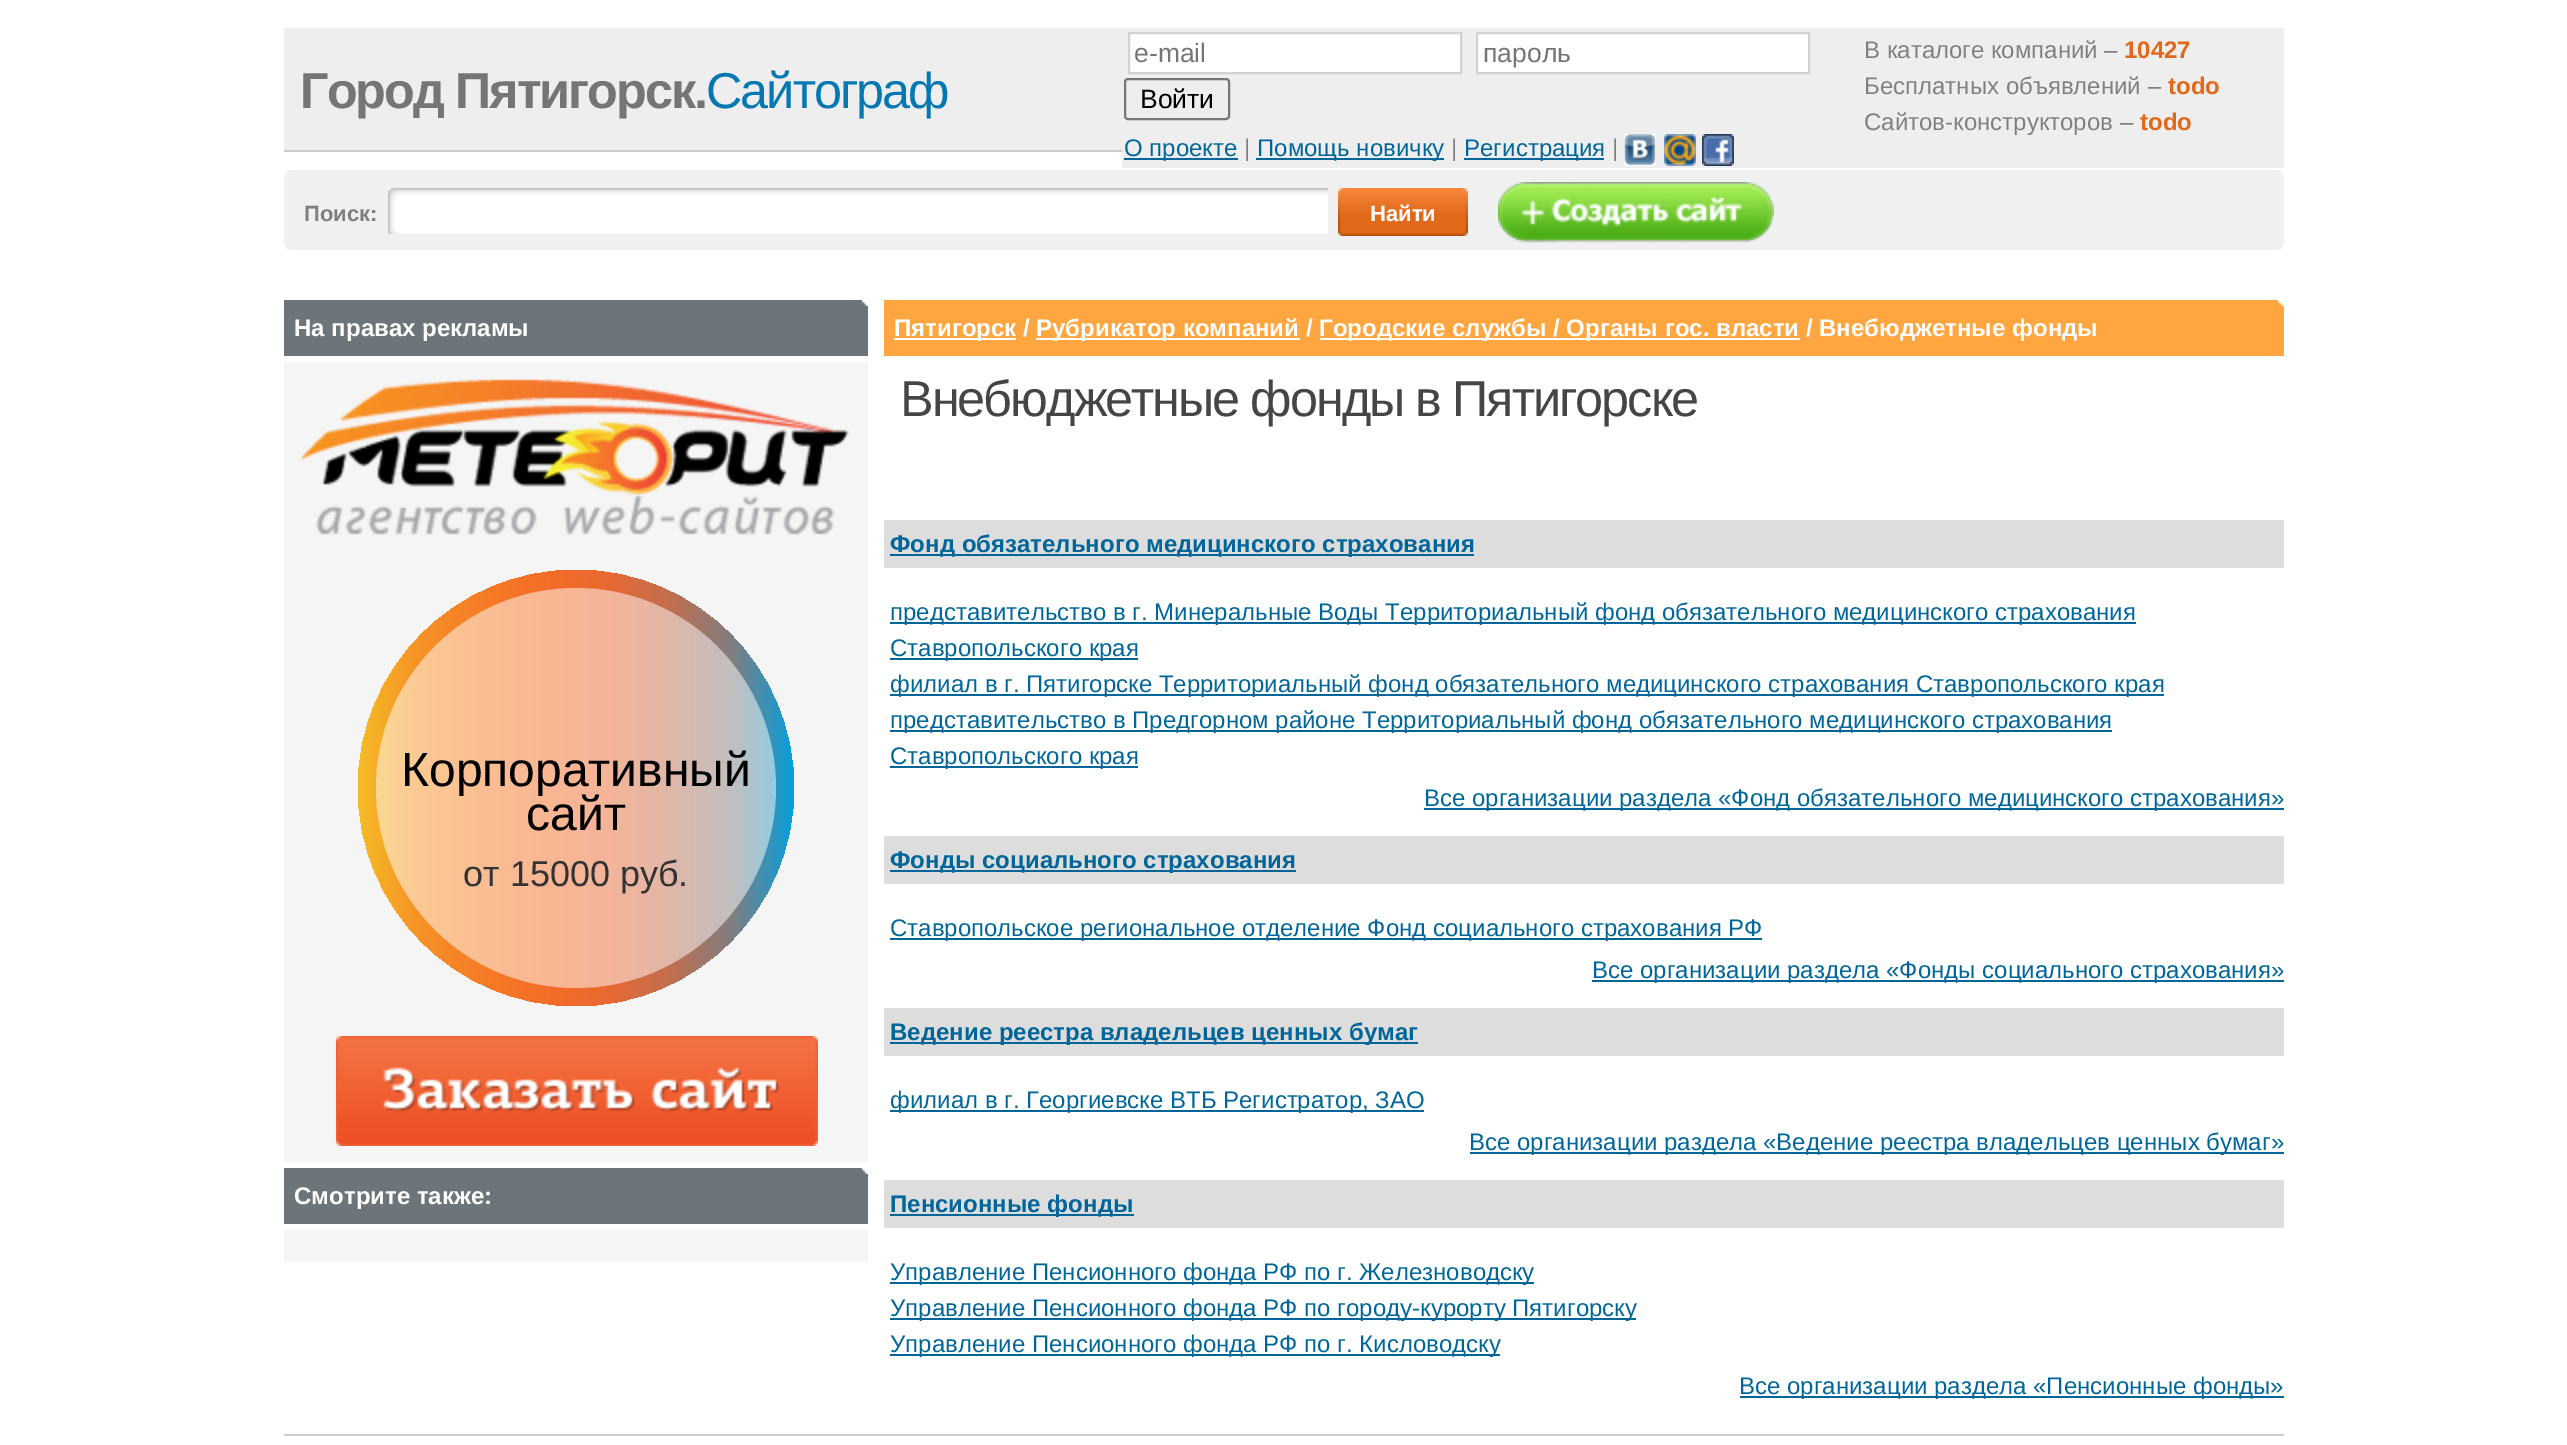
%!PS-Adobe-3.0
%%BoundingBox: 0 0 2567 1445
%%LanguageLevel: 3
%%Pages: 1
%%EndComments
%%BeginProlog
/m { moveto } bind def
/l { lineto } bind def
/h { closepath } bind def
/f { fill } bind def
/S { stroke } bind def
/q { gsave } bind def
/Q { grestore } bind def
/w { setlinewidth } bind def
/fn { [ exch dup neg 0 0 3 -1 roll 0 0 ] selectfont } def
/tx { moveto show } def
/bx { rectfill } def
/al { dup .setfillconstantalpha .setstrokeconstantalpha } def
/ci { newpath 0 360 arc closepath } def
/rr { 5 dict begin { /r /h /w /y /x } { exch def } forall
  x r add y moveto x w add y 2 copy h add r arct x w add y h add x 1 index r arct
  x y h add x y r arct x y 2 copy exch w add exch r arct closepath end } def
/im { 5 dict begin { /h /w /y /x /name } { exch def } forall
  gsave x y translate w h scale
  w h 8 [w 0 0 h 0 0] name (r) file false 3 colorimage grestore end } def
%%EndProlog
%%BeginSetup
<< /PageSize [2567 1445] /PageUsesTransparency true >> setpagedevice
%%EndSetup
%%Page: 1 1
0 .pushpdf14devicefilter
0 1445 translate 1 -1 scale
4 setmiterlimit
1 setgray
0 0 2567 1445 bx
0.933 setgray
284 28 838 122 bx
0.8 setgray
284 150 838 2 bx
/LiberationSans-Bold 50.4 fn
0.459 setgray
300 108 m -2 0 (Город Пятигорск.) ashow
/LiberationSans-Regular 50.4 fn
0.02 0.471 0.694 setrgbcolor
706 108 m -2 0 (Сайтограф) ashow
0.933 setgray
1122 28 1162 140 bx
1 setgray
1129 33 m 1461 33 l 1461 73 l 1129 73 l h q f Q
0.824 setgray
2 w
S
/LiberationSans-Regular 26.5 fn
0.459 setgray
(e-mail) 1134 62 tx
1 setgray
1477 33 m 1809 33 l 1809 73 l 1477 73 l h q f Q
0.824 setgray
S
0.459 setgray
(пароль) 1483 62 tx
0.463 setgray
1125 79 104 40 3 rr S
0 setgray
(Войти) 1140 108 tx
0 0.4 0.6 setrgbcolor
1124 158 114 2 bx
/LiberationSans-Regular 24 fn
(О проекте) 1124 156 tx
0.502 setgray
(|) 1244 156 tx
0 0.4 0.6 setrgbcolor
1256 158 188 2 bx
(Помощь новичку) 1257 156 tx
0.502 setgray
(|) 1451 156 tx
0 0.4 0.6 setrgbcolor
1464 158 140 2 bx
(Регистрация) 1464 156 tx
0.502 setgray
(|) 1612 156 tx
(image0.raw) 1624 134 32 32 im
(image1.raw) 1664 134 32 32 im
(image2.raw) 1702 134 32 32 im
(В каталоге компаний –) 1864 58 tx
/LiberationSans-Bold 24 fn
0.878 0.412 0.102 setrgbcolor
(10427) 2124 58 tx
/LiberationSans-Regular 24 fn
0.502 setgray
(Бесплатных объявлений –) 1864 94 tx
/LiberationSans-Bold 24 fn
0.878 0.412 0.102 setrgbcolor
(todo) 2168 94 tx
/LiberationSans-Regular 24 fn
0.502 setgray
(Сайтов-конструкторов –) 1864 130 tx
/LiberationSans-Bold 24 fn
0.878 0.412 0.102 setrgbcolor
(todo) 2140 130 tx
(image3.raw) 284 170 2000 80 im
/LiberationSans-Bold 22 fn
0.502 setgray
(Поиск:) 304 221 tx
(image4.raw) 388 188 940 46 im
(image5.raw) 1338 188 130 48 im
1 setgray
(Найти) 1370 221 tx
(image6.raw) 1498 182 276 61 im
0.424 0.459 0.478 setrgbcolor
284 300 584 56 bx
(image7.raw) 862 300 6 6 im
/LiberationSans-Bold 24 fn
1 setgray
(На правах рекламы) 294 336 tx
0.961 setgray
284 362 584 800 bx
(image8.raw) 300 379 550 156 im
q 576 788 218 ci clip newpath
<< /ShadingType 2 /ColorSpace /DeviceRGB /Coords [358 788 794 788] /Extend [true true] /Function << /FunctionType 3 /Domain [0 1] /Functions [<< /FunctionType 2 /Domain [0 1] /C0 [0.961 0.733 0.149] /C1 [0.961 0.573 0.149] /N 1 >> << /FunctionType 2 /Domain [0 1] /C0 [0.961 0.573 0.149] /C1 [0.961 0.482 0.149] /N 1 >> << /FunctionType 2 /Domain [0 1] /C0 [0.961 0.482 0.149] /C1 [0.961 0.427 0.149] /N 1 >> << /FunctionType 2 /Domain [0 1] /C0 [0.961 0.427 0.149] /C1 [0.91 0.412 0.196] /N 1 >> << /FunctionType 2 /Domain [0 1] /C0 [0.91 0.412 0.196] /C1 [0.765 0.431 0.306] /N 1 >> << /FunctionType 2 /Domain [0 1] /C0 [0.765 0.431 0.306] /C1 [0.502 0.494 0.506] /N 1 >> << /FunctionType 2 /Domain [0 1] /C0 [0.502 0.494 0.506] /C1 [0.02 0.627 0.867] /N 1 >>] /Bounds [0.14 0.29 0.43 0.57 0.71 0.86] /Encode [0 1 0 1 0 1 0 1 0 1 0 1 0 1] >> >> shfill Q
0.5 al
1 setgray
576 788 200 ci f
/LiberationSans-Regular 48 fn
1 al
0 setgray
(Корпоративный) 401 786 tx
(сайт) 526 830 tx
/LiberationSans-Regular 36 fn
0.2 setgray
(от 15000 руб.) 463 886 tx
(image9.raw) 336 1036 482 110 im
0.424 0.459 0.478 setrgbcolor
284 1168 584 56 bx
(image7.raw) 862 1168 6 6 im
/LiberationSans-Bold 24 fn
1 setgray
(Смотрите также:) 294 1204 tx
0.961 setgray
284 1230 584 32 bx
1 0.651 0.251 setrgbcolor
884 300 1400 56 bx
(image10.raw) 2278 300 6 6 im
1 setgray
894 338 122 2 bx
(Пятигорск /) 894 336 tx
1036 338 264 2 bx
(Рубрикатор компаний /) 1036 336 tx
1320 338 480 2 bx
(Городские службы / Органы гос. власти / Внебюджетные фонды) 1319 336 tx
/LiberationSans-Regular 50.4 fn
0.271 setgray
900 416 m -2 0 (Внебюджетные фонды в Пятигорске) ashow
0.867 setgray
884 520 1400 48 bx
0 0.4 0.6 setrgbcolor
890 554 584 2 bx
/LiberationSans-Bold 24 fn
(Фонд обязательного медицинского страхования) 890 552 tx
890 622 1246 2 bx
/LiberationSans-Regular 24 fn
(представительство в г. Минеральные Воды Территориальный фонд обязательного медицинского страхования) 890 620 tx
890 658 248 2 bx
(Ставропольского края) 890 656 tx
890 694 1274 2 bx
(филиал в г. Пятигорске Территориальный фонд обязательного медицинского страхования Ставропольского края) 890 692 tx
890 730 1222 2 bx
(представительство в Предгорном районе Территориальный фонд обязательного медицинского страхования) 890 728 tx
890 766 248 2 bx
(Ставропольского края) 890 764 tx
1424 808 860 2 bx
(Все организации раздела «Фонд обязательного медицинского страхования») 1424 806 tx
0.867 setgray
884 836 1400 48 bx
0 0.4 0.6 setrgbcolor
890 870 406 2 bx
/LiberationSans-Bold 24 fn
(Фонды социального страхования) 890 868 tx
890 938 872 2 bx
/LiberationSans-Regular 24 fn
(Ставропольское региональное отделение Фонд социального страхования РФ) 890 936 tx
1592 980 692 2 bx
(Все организации раздела «Фонды социального страхования») 1592 978 tx
0.867 setgray
884 1008 1400 48 bx
0 0.4 0.6 setrgbcolor
890 1042 528 2 bx
/LiberationSans-Bold 24 fn
(Ведение реестра владельцев ценных бумаг) 890 1040 tx
890 1110 534 2 bx
/LiberationSans-Regular 24 fn
(филиал в г. Георгиевске ВТБ Регистратор, ЗАО) 890 1108 tx
1470 1152 814 2 bx
(Все организации раздела «Ведение реестра владельцев ценных бумаг») 1469 1150 tx
0.867 setgray
884 1180 1400 48 bx
0 0.4 0.6 setrgbcolor
890 1214 244 2 bx
/LiberationSans-Bold 24 fn
(Пенсионные фонды) 890 1212 tx
890 1282 644 2 bx
/LiberationSans-Regular 24 fn
(Управление Пенсионного фонда РФ по г. Железноводску) 890 1280 tx
890 1318 746 2 bx
(Управление Пенсионного фонда РФ по городу-курорту Пятигорску) 890 1316 tx
890 1354 610 2 bx
(Управление Пенсионного фонда РФ по г. Кисловодску) 890 1352 tx
1740 1396 544 2 bx
(Все организации раздела «Пенсионные фонды») 1739 1394 tx
0.8 setgray
284 1434 2000 2 bx
.poppdf14devicefilter showpage
%%EOF
